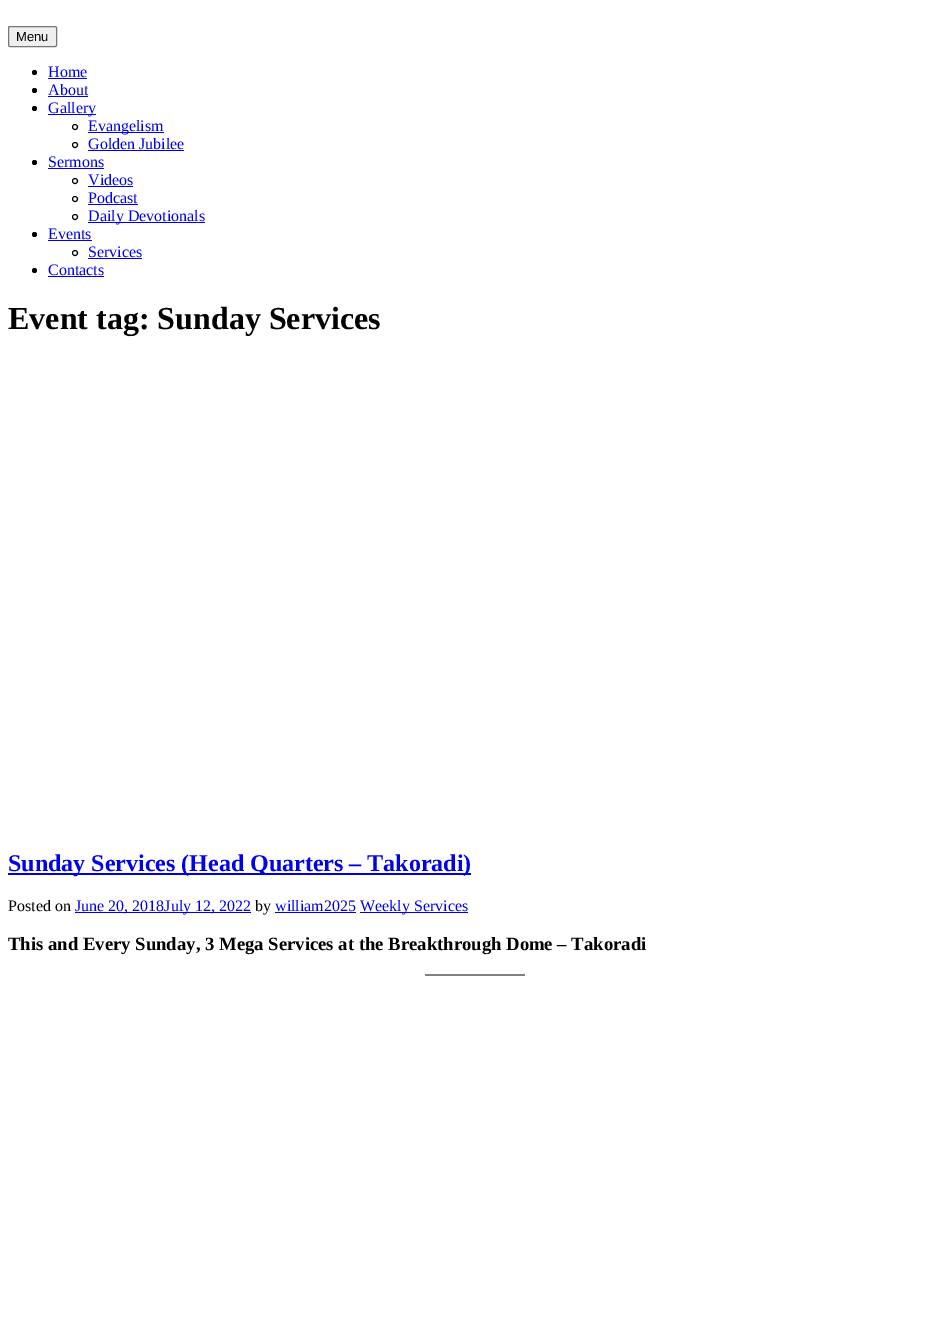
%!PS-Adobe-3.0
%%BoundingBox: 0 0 949 1330
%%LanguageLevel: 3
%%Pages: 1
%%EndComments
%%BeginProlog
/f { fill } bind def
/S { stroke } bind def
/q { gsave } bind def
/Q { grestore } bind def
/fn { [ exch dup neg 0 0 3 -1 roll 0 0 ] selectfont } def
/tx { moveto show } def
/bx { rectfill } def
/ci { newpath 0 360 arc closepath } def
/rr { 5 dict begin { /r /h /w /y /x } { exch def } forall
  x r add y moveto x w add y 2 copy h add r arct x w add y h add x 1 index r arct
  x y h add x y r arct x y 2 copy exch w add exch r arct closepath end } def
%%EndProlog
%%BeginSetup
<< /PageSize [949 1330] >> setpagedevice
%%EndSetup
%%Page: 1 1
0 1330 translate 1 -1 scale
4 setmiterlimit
1 setgray
0 0 949 1330 bx
0.937 setgray
8.5 26.5 48 20 1.5 rr q f Q
0.463 setgray
S
/LiberationSans-Regular 13 fn
0 setgray
(Menu) 16 41 tx
34.5 72.5 2.5 ci f
/LiberationSerif-Regular 16 fn
0 0 0.933 setrgbcolor
(Home) 48 77 tx
48 78 39 1 bx
0 setgray
34.5 90.5 2.5 ci f
0 0 0.933 setrgbcolor
(About) 48 95 tx
48 96 40 1 bx
0 setgray
34.5 108.5 2.5 ci f
0 0 0.933 setrgbcolor
48 114 48 1 bx
(Gallery) 48 113 tx
0 setgray
75 127 2.5 ci S
0 0 0.933 setrgbcolor
88 132 76 1 bx
(Evangelism) 88 131 tx
0 setgray
75 145 2.5 ci S
0 0 0.933 setrgbcolor
(Golden Jubilee) 88 149 tx
88 150 96 1 bx
0 setgray
34.5 162.5 2.5 ci f
0 0 0.933 setrgbcolor
(Sermons) 48 167 tx
48 168 56 1 bx
0 setgray
75 181 2.5 ci S
0 0 0.933 setrgbcolor
(Videos) 88 185 tx
88 186 45 1 bx
0 setgray
75 199 2.5 ci S
0 0 0.933 setrgbcolor
(Podcast) 88 203 tx
88 204 50 1 bx
0 setgray
75 217 2.5 ci S
0 0 0.933 setrgbcolor
88 222 117 1 bx
(Daily Devotionals) 88 221 tx
0 setgray
34.5 234.5 2.5 ci f
0 0 0.933 setrgbcolor
(Events) 48 239 tx
48 240 44 1 bx
0 setgray
75 253 2.5 ci S
0 0 0.933 setrgbcolor
(Services) 88 257 tx
88 258 54 1 bx
0 setgray
34.5 270.5 2.5 ci f
0 0 0.933 setrgbcolor
(Contacts) 48 275 tx
48 276 56 1 bx
/LiberationSerif-Bold 32 fn
0 setgray
(Event tag: Sunday Services) 8 329 tx
0 0 0.933 setrgbcolor
8 873 463 2 bx
/LiberationSerif-Bold 24 fn
(Sunday Services \(Head Quarters – Takoradi\)) 8 871 tx
/LiberationSerif-Regular 16 fn
0 setgray
(Posted on) 8 911 tx
0 0 0.933 setrgbcolor
75 912 176 1 bx
(June 20, 2018July 12, 2022) 75 911 tx
0 setgray
(by) 255 911 tx
0 0 0.933 setrgbcolor
(william2025) 275 911 tx
275 912 81 1 bx
360 912 108 1 bx
(Weekly Services) 360 911 tx
/LiberationSerif-Bold 18.7 fn
0 setgray
(This and Every Sunday, 3 Mega Services at the Breakthrough Dome – Takoradi) 8 950 tx
0.502 setgray
425 974 100 2 bx
showpage
%%EOF
